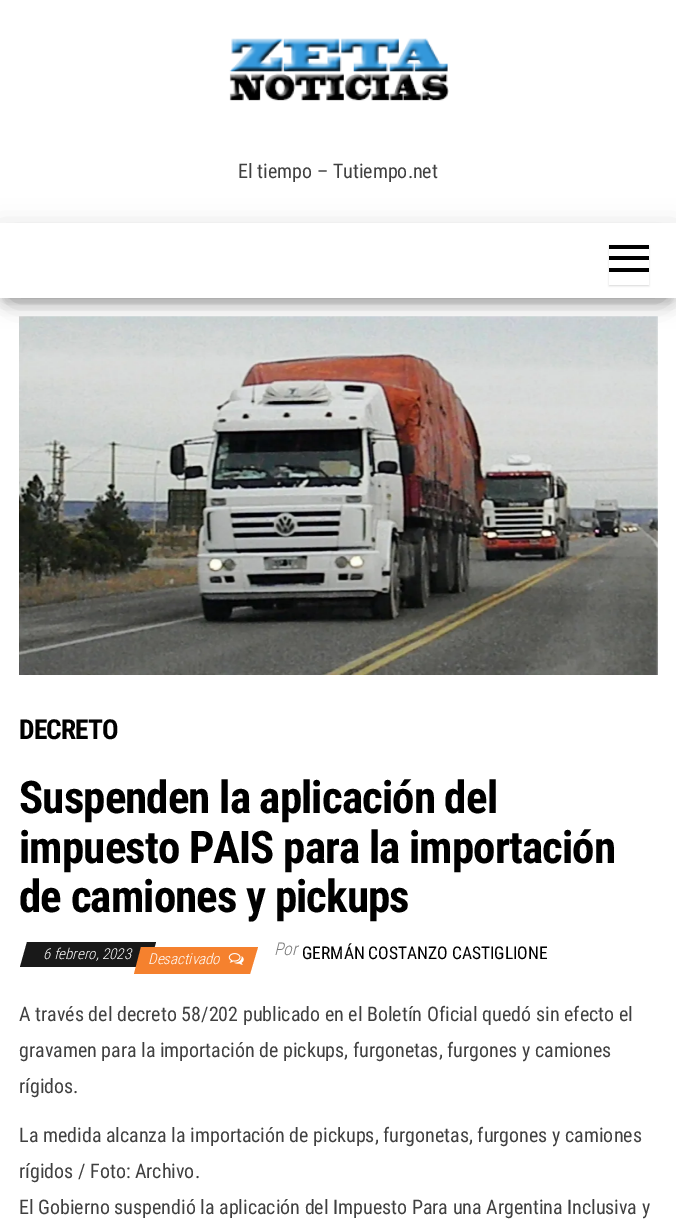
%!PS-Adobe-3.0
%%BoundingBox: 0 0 676 1223
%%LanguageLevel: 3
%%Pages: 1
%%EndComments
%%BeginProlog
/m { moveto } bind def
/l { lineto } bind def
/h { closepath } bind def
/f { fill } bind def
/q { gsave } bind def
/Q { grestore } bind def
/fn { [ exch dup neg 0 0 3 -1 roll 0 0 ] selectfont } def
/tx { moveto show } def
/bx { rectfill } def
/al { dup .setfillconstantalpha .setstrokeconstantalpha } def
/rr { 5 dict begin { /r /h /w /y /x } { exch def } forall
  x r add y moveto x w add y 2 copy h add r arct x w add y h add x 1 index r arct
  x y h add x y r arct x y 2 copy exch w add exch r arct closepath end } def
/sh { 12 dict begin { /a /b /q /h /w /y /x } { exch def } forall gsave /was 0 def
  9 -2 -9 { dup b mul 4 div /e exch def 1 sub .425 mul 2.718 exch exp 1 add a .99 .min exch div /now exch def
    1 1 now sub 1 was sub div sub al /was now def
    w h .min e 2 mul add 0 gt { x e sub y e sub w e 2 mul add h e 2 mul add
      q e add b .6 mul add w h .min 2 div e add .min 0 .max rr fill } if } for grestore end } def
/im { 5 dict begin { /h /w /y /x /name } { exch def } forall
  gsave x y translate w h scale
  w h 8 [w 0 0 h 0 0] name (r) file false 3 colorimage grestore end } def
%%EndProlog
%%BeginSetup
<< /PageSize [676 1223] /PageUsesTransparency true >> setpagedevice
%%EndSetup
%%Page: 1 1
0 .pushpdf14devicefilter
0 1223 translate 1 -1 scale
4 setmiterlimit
1 setgray
0 0 676 1223 bx
(image0.raw) 229 38 220 63 im
/RobotoCondensed-Regular 20 fn
0.251 setgray
(El tiempo – Tutiempo.net) 238 178 tx
0 setgray
6 239 664 62 0 6 0.2 sh
0 226 676 75 0 12.5 0.12 sh
15 250 646 45 0 12.5 0.42 sh
1 setgray
0 223 676 75 bx
q
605 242 m 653 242 l 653 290 l 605 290 l h 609 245 m 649 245 l 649 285 l 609 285 l h eoclip newpath
0 setgray
609 246 40 40 0 1 0.15 sh
Q
0 setgray
609 245 40 4 bx
609 256 40 4 bx
609 268 40 4 bx
(image1.raw) 19 316 639 359 im
/RobotoCondensed-Bold 27.5 fn
19 739 m -0.9 0 (DECRETO) ashow
/RobotoCondensed-Bold 45 fn
19 813 m -0.9 0 (Suspenden la aplicación del) ashow
19 863 m -0.9 0 (impuesto PAIS para la importación) ashow
19 912 m -0.9 0 (de camiones y pickups) ashow
0.098 setgray
27 942 m 156 942 l 149 967 l 20 967 l h f
/RobotoCondensed-LightItalic 15 fn
1 setgray
(6 febrero, 2023) 43 959 tx
0.961 0.506 0.18 setrgbcolor
141 947 m 258 947 l 250 974 l 134 974 l h f
1 setgray
(Desactivado) 148 964 tx
(image2.raw) 228 953 16 12 im
/RobotoCondensed-LightItalic 17.5 fn
0.475 setgray
(Por) 274 955 tx
/RobotoCondensed-Regular 17.5 fn
0 setgray
(GERMÁN COSTANZO CASTIGLIONE) 302 959 tx
/RobotoCondensed-Regular 20 fn
0.251 setgray
(A través del decreto 58/202 publicado en el Boletín Oficial quedó sin efecto el) 19 1021 tx
(gravamen para la importación de pickups, furgonetas, furgones y camiones) 19 1057 tx
(rígidos.) 19 1093 tx
(La medida alcanza la importación de pickups, furgonetas, furgones y camiones) 19 1142 tx
(rígidos / Foto: Archivo.) 19 1178 tx
(El Gobierno suspendió la aplicación del Impuesto Para una Argentina Inclusiva y) 19 1214 tx
.poppdf14devicefilter showpage
%%EOF
